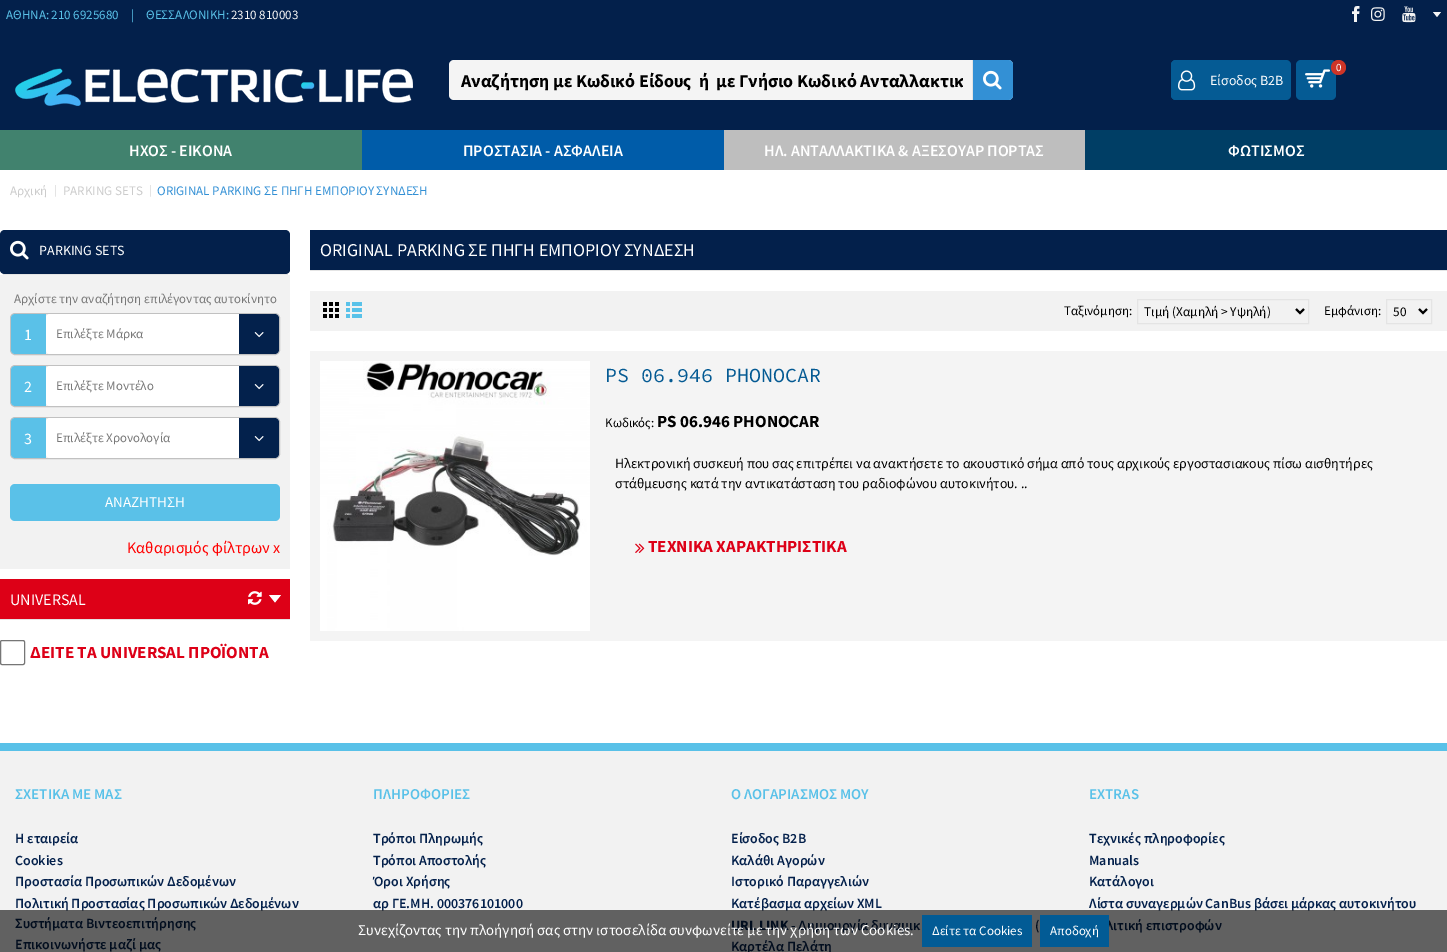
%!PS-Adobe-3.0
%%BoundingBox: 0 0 1447 952
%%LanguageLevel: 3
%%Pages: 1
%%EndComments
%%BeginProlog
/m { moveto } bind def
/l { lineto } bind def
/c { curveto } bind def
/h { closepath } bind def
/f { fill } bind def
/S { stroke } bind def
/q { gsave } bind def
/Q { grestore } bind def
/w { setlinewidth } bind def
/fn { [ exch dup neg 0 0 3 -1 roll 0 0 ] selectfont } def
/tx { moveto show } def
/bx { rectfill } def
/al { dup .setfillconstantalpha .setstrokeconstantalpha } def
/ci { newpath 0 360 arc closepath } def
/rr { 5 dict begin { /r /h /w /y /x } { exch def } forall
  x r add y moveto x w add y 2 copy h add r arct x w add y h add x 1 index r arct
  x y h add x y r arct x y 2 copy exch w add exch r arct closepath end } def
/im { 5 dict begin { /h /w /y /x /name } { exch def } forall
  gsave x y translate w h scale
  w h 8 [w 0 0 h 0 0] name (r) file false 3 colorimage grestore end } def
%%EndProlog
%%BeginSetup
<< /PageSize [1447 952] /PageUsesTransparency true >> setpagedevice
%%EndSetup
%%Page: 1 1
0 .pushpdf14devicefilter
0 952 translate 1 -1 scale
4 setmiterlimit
1 setgray
0 0 1447 952 bx
0.012 0.125 0.294 setrgbcolor
0 0 1447 130 bx
/SourceSansPro-Regular 13 fn
0.349 0.757 0.91 setrgbcolor
(ΑΘΗΝΑ: 210 6925680) 6 19 tx
(|) 131 19 tx
(ΘΕΣΣΑΛΟΝΙΚΗ:) 146 19 tx
0.957 setgray
(2310 810003) 231 19 tx
(image0.raw) 1352 6 8 16 im
(image1.raw) 1371 7 14 14 im
(image2.raw) 1402 6 14 17 im
1441 12 m 1433 12 l 1437 17 l h f
(image3.raw) 15 68 398 38 im
449 60 564 40 5 rr f
q
461 69 502 23 rectclip
/SourceSansPro-Bold 18 fn
0 setgray
(Αναζήτηση με Κωδικό Είδους  ή  με Γνήσιο Κωδικό Ανταλλακτικ) 461 87 tx
Q
0.2 0.565 0.835 setrgbcolor
972 60 m 1008 60 l 1011 60 1013 62 1013 65 c 1013 95 l 1013 98 1011 100 1008 100 c 972 100 l h f
0.894 setgray
972 60 1 40 bx
(image4.raw) 983 70 19 20 im
0.02 0.357 0.58 setrgbcolor
1296 60 40 40 5 rr f
(image5.raw) 1305 69 25 19 im
0.808 0.208 0.153 setrgbcolor
1338.5 67.5 7.5 ci f
/SourceSansPro-Regular 11 fn
1 setgray
(0) 1336 71 tx
0.02 0.357 0.58 setrgbcolor
1171 60 120 40 5 rr f
1171 60 31 40 5 rr f
(image6.raw) 1178 70 18 21 im
/SourceSansPro-Regular 14 fn
1 setgray
(Είσοδος B2B) 1210 85 tx
0.255 0.51 0.431 setrgbcolor
0 130 362 40 bx
/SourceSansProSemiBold-SemiBold 16 fn
1 setgray
(ΗΧΟΣ - ΕΙΚΟΝΑ) 129 156 tx
0 0.361 0.663 setrgbcolor
362 130 362 40 bx
1 setgray
(ΠΡΟΣΤΑΣΙΑ - ΑΣΦΑΛΕΙΑ) 463 156 tx
0.745 setgray
724 130 361 40 bx
1 setgray
(ΗΛ. ΑΝΤΑΛΛΑΚΤΙΚΑ & ΑΞΕΣΟΥΑΡ ΠΟΡΤΑΣ) 764 156 tx
0 0.243 0.396 setrgbcolor
1085 130 362 40 bx
1 setgray
(ΦΩΤΙΣΜΟΣ) 1228 156 tx
/SourceSansPro-Regular 13 fn
0.8 setgray
(Αρχική) 10 195 tx
/LiberationSerif-Regular 13 fn
(|) 54 194 tx
/SourceSansPro-Regular 13 fn
(PARKING SETS) 63 195 tx
/LiberationSerif-Regular 13 fn
(|) 149 194 tx
/SourceSansPro-Regular 13 fn
0.2 0.565 0.835 setrgbcolor
(ORIGINAL PARKING ΣΕ ΠΗΓΗ ΕΜΠΟΡΙΟΥ ΣΥΝΔΕΣΗ) 157 195 tx
0.012 0.125 0.294 setrgbcolor
5 230 m 285 230 l 288 230 290 232 290 235 c 290 270 l 290 272 288 274 285 274 c 5 274 l 2 274 0 272 0 270 c 0 235 l 0 232 2 230 5 230 c h f
0.894 setgray
3 274 285 1 bx
(image7.raw) 10 240 19 20 im
/SourceSansPro-Regular 14 fn
1 setgray
(PARKING SETS) 39 255 tx
0.949 setgray
0 275 290 294 bx
/SourceSansPro-Regular 13 fn
0.475 setgray
(Αρχίστε την αναζήτηση επιλέγοντας αυτοκίνητο) 14 303 tx
0.757 setgray
10.5 313.5 269 41 4.5 rr S
0.353 0.757 0.91 setrgbcolor
15 314 m 46 314 l 46 354 l 15 354 l 13 354 11 352 11 350 c 11 318 l 11 316 13 314 15 314 c h f
/SourceSansPro-Regular 16 fn
1 setgray
(1) 24 340 tx
46 314 233 40 4 rr f
/SourceSansPro-Regular 13 fn
0.475 setgray
(Επιλέξτε Μάρκα) 56 338 tx
0.012 0.129 0.298 setrgbcolor
239 314 m 275 314 l 277 314 279 316 279 318 c 279 350 l 279 352 277 354 275 354 c 239 354 l h f
(image8.raw) 254 332 10 6 im
0.757 setgray
10.5 365.5 269 41 4.5 rr S
0.353 0.757 0.91 setrgbcolor
15 366 m 46 366 l 46 406 l 15 406 l 13 406 11 404 11 402 c 11 370 l 11 368 13 366 15 366 c h f
/SourceSansPro-Regular 16 fn
1 setgray
(2) 24 392 tx
46 366 233 40 4 rr f
/SourceSansPro-Regular 13 fn
0.475 setgray
(Επιλέξτε Μοντέλο) 56 390 tx
0.012 0.129 0.298 setrgbcolor
239 366 m 275 366 l 277 366 279 368 279 370 c 279 402 l 279 404 277 406 275 406 c 239 406 l h f
(image8.raw) 254 384 10 6 im
0.757 setgray
10.5 417.5 269 41 4.5 rr S
0.353 0.757 0.91 setrgbcolor
15 418 m 46 418 l 46 458 l 15 458 l 13 458 11 456 11 454 c 11 422 l 11 420 13 418 15 418 c h f
/SourceSansPro-Regular 16 fn
1 setgray
(3) 24 444 tx
46 418 233 40 4 rr f
/SourceSansPro-Regular 13 fn
0.475 setgray
(Επιλέξτε Χρονολογία) 56 442 tx
0.012 0.129 0.298 setrgbcolor
239 418 m 275 418 l 277 418 279 420 279 422 c 279 454 l 279 456 277 458 275 458 c 239 458 l h f
(image8.raw) 254 436 10 6 im
0.353 0.757 0.91 setrgbcolor
10 484 270 37 5 rr f
/SourceSansPro-Regular 15 fn
1 setgray
(ΑΝΑΖΗΤΗΣΗ) 105 507 tx
/SourceSansPro-Regular 16 fn
1 0.004 0.004 setrgbcolor
(Καθαρισμός φίλτρων x) 127 553 tx
0.867 0 0.09 setrgbcolor
0 579 290 40 bx
(image9.raw) 248 591 14 14 im
0.894 setgray
0 619 290 1 bx
1 setgray
(UNIVERSAL) 10 605 tx
281 595 m 269 595 l 275 602.5 l h f
0.463 setgray
0.5 640.5 24 24 1.5 rr S
/SourceSansPro-Bold 17 fn
0.867 0 0.09 setrgbcolor
(ΔΕΙΤΕ ΤΑ UNIVERSAL ΠΡΟΪΟΝΤΑ) 30 658 tx
0.012 0.125 0.294 setrgbcolor
310 230 1137 40 bx
0.894 setgray
310 270 1137 1 bx
/SourceSansPro-Regular 18 fn
1 setgray
(ORIGINAL PARKING ΣΕ ΠΗΓΗ ΕΜΠΟΡΙΟΥ ΣΥΝΔΕΣΗ) 320 256 tx
0.949 setgray
310 291 1137 40 bx
(image10.raw) 323 302 16 16 im
(image11.raw) 346 302 16 16 im
/SourceSansPro-Regular 13 fn
0 setgray
(Ταξινόμηση:) 1064 315 tx
0.894 setgray
1137.5 299.5 171 24 rectstroke
0 setgray
2 w
1296 309 m 1300 313 l 1304 309 l S
/SourceSansPro-Regular 13.25 fn
(Τιμή \(Χαμηλή > Υψηλή\)) 1144 316 tx
/SourceSansPro-Regular 13 fn
(Εμφάνιση:) 1324 315 tx
0.894 setgray
1 w
1386.5 299.5 45 24 rectstroke
0 setgray
2 w
1419 309 m 1423 313 l 1427 309 l S
/SourceSansPro-Regular 13.25 fn
(50) 1393 316 tx
0.957 setgray
310 351 1137 290 bx
(image12.raw) 320 361 270 270 im
/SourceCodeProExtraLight-ExtraLight 20 fn
0.016 0.353 0.576 setrgbcolor
(PS 06.946 PHONOCAR) 605 382 tx
/SourceSansPro-Regular 13 fn
0 setgray
(Κωδικός:) 605 427 tx
/SourceSansPro-Bold 17 fn
(PS 06.946 PHONOCAR) 657 427 tx
/SourceSansPro-Regular 14 fn
(Ηλεκτρονική συσκευή που σας επιτρέπει να ανακτήσετε το ακουστικό σήμα από τους αρχικούς εργοστασιακους πίσω αισθητήρες) 615 468 tx
(στάθμευσης κατά την αντικατάσταση του ραδιοφώνου αυτοκινήτου. ..) 615 488 tx
(image13.raw) 635 543 10 10 im
/SourceSansPro-Bold 17 fn
0.867 0 0.09 setrgbcolor
(ΤΕΧΝΙΚΑ ΧΑΡΑΚΤΗΡΙΣΤΙΚΑ) 648 552 tx
0.949 setgray
0 751 1447 201 bx
0.349 0.757 0.91 setrgbcolor
0 743 1447 8 bx
/SourceSansProSemiBold-SemiBold 15 fn
(ΣΧΕΤΙΚΑ ΜΕ ΜΑΣ) 15 799 tx
/SourceSansProSemiBold-SemiBold 14 fn
0.012 0.125 0.294 setrgbcolor
(Η εταιρεία) 15 843 tx
(Cookies) 15 865 tx
(Προστασία Προσωπικών Δεδομένων) 15 886 tx
(Πολιτική Προστασίας Προσωπικών Δεδομένων) 15 908 tx
(Συστήματα Βιντεοεπιτήρησης) 15 928 tx
(Επικοινωνήστε μαζί μας) 15 949 tx
/SourceSansProSemiBold-SemiBold 15 fn
0.349 0.757 0.91 setrgbcolor
(ΠΛΗΡΟΦΟΡΙΕΣ) 373 799 tx
/SourceSansProSemiBold-SemiBold 14 fn
0.012 0.125 0.294 setrgbcolor
(Τρόποι Πληρωμής) 373 843 tx
(Τρόποι Αποστολής) 373 865 tx
(Όροι Χρήσης) 373 886 tx
(αρ ΓΕ.ΜΗ. 000376101000) 373 908 tx
/SourceSansProSemiBold-SemiBold 15 fn
0.349 0.757 0.91 setrgbcolor
(Ο ΛΟΓΑΡΙΑΣΜΟΣ ΜΟΥ) 731 799 tx
/SourceSansProSemiBold-SemiBold 14 fn
0.012 0.125 0.294 setrgbcolor
(Είσοδος B2B) 731 843 tx
(Καλάθι Αγορών) 731 865 tx
(Ιστορικό Παραγγελιών) 731 886 tx
(Κατέβασμα αρχείων XML) 731 908 tx
/SourceSansPro-Bold 14 fn
(URL LINK) 731 930 tx
/SourceSansProSemiBold-SemiBold 14 fn
(- Δημιουργία δυναμικ) 791 930 tx
(\() 1035 930 tx
(Καρτέλα Πελάτη) 731 951 tx
/SourceSansProSemiBold-SemiBold 15 fn
0.349 0.757 0.91 setrgbcolor
(EXTRAS) 1089 799 tx
/SourceSansProSemiBold-SemiBold 14 fn
0.012 0.125 0.294 setrgbcolor
(Τεχνικές πληροφορίες) 1089 843 tx
(Manuals) 1089 865 tx
(Κατάλογοι) 1089 886 tx
(Λίστα συναγερμών CanBus βάσει μάρκας αυτοκινήτου) 1089 908 tx
(λιτική επιστροφών) 1106 930 tx
0.6 al
0 setgray
0 910 1447 42 bx
/SourceSansPro-Regular 15 fn
1 al
1 setgray
(Συνεχίζοντας την πλοήγησή σας στην ιστοσελίδα συνφωνείτε με την χρήση των Cookies.) 358 935 tx
0.008 0.357 0.584 setrgbcolor
922 915 110 32 bx
/SourceSansPro-Regular 13 fn
1 setgray
(Δείτε τα Cookies) 932 935 tx
0.008 0.357 0.584 setrgbcolor
1040 915 69 32 bx
1 setgray
(Αποδοχή) 1050 935 tx
.poppdf14devicefilter showpage
%%EOF
